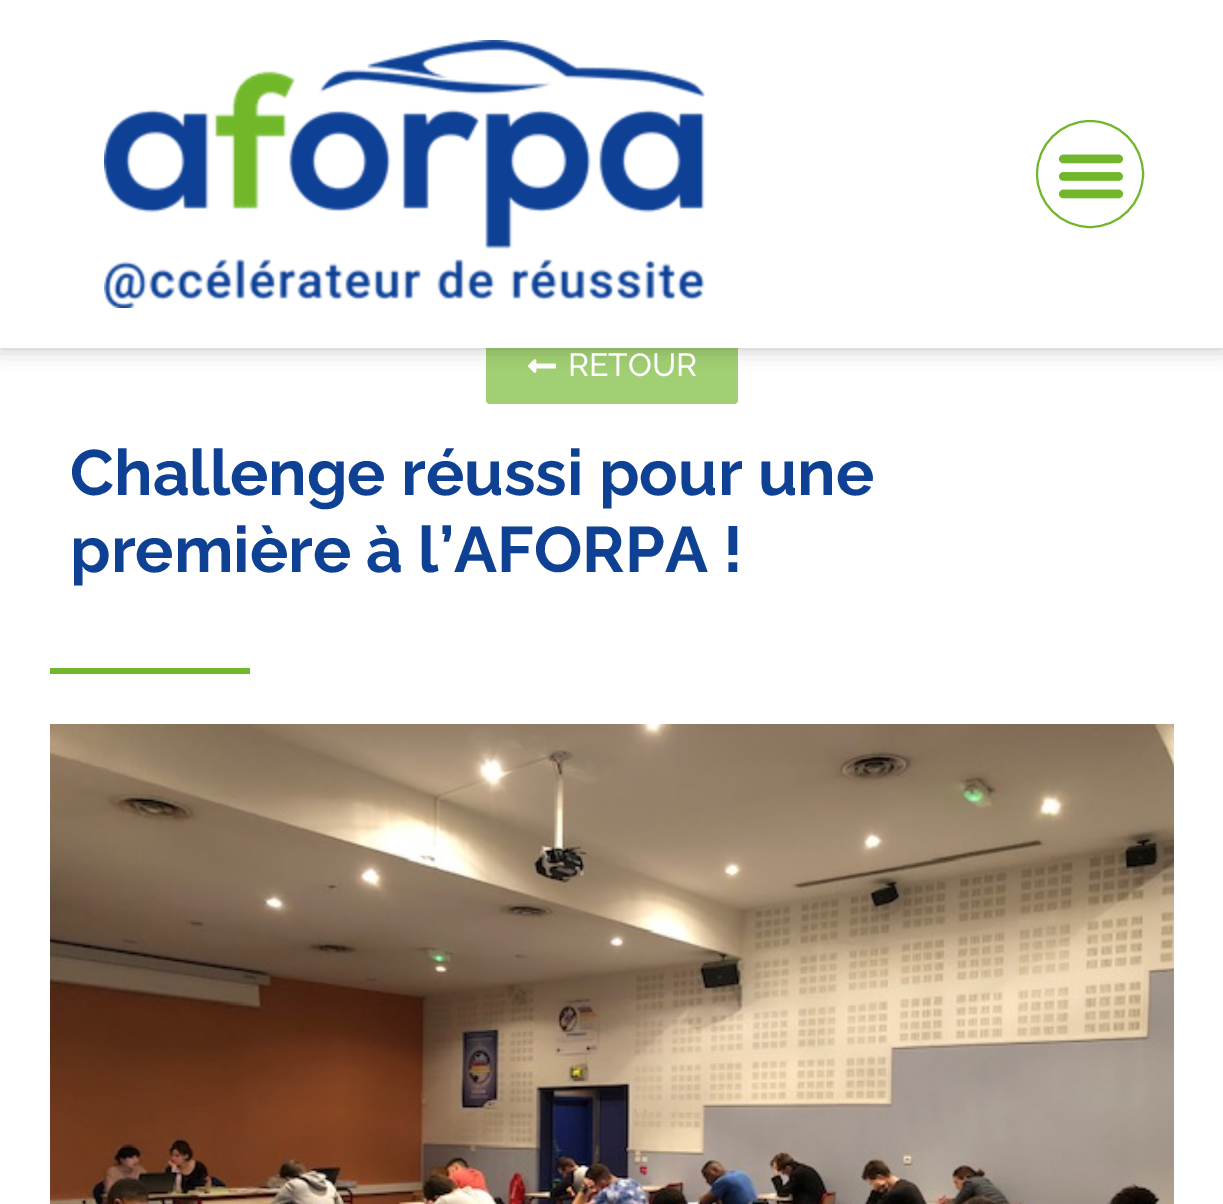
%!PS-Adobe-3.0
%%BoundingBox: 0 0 1223 1204
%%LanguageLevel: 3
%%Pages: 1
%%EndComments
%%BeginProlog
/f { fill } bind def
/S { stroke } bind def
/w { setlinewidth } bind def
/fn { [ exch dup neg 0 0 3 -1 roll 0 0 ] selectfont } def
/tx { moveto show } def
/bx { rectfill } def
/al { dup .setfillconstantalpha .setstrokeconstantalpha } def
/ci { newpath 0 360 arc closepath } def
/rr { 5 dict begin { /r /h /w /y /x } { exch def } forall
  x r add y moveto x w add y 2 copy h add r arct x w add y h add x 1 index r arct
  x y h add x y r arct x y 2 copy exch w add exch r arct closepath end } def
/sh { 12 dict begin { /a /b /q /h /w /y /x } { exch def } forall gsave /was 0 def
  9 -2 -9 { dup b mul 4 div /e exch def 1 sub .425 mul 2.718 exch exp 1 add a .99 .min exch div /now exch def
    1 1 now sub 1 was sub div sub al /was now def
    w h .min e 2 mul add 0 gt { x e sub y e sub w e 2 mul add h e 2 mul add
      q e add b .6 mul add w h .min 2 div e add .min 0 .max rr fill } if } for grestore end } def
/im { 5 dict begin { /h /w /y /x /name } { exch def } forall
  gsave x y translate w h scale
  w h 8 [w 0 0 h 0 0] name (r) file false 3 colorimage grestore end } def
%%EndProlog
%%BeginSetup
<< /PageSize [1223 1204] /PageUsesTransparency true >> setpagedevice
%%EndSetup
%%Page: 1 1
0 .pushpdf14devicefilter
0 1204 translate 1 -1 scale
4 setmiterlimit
1 setgray
0 0 1223 1204 bx
0.631 0.812 0.451 setrgbcolor
486 326 252 78 4 rr f
(image2.raw) 528 359 28 14 im
0 setgray
0 0 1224 348 0 10 0.25 sh
1 setgray
0 0 1223 348 bx
(image0.raw) 104 40 601 268 im
0.443 0.714 0.169 setrgbcolor
2 w
1090 174 53 ci S
(image1.raw) 1058 154 66 45 im
/Raleway-Medium 32 fn
1 setgray
(RETOUR) 568 376 tx
/Raleway-Bold 64 fn
0.055 0.255 0.58 setrgbcolor
(Challenge réussi pour une) 70 495 tx
(première à l’AFORPA !) 70 572 tx
0.443 0.714 0.169 setrgbcolor
50 668 200 6 bx
(image3.raw) 50 724 1124 480 im
.poppdf14devicefilter showpage
%%EOF
